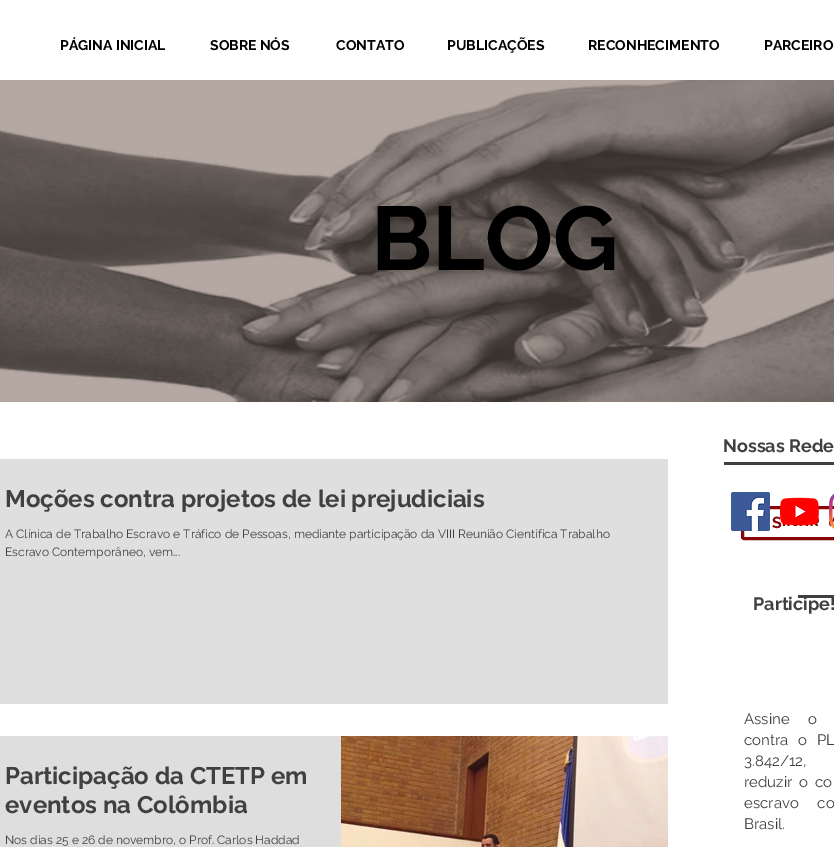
%!PS-Adobe-3.0
%%BoundingBox: 0 0 834 847
%%LanguageLevel: 3
%%Pages: 1
%%EndComments
%%BeginProlog
/m { moveto } bind def
/S { stroke } bind def
/w { setlinewidth } bind def
/fn { [ exch dup neg 0 0 3 -1 roll 0 0 ] selectfont } def
/tx { moveto show } def
/bx { rectfill } def
/rr { 5 dict begin { /r /h /w /y /x } { exch def } forall
  x r add y moveto x w add y 2 copy h add r arct x w add y h add x 1 index r arct
  x y h add x y r arct x y 2 copy exch w add exch r arct closepath end } def
/im { 5 dict begin { /h /w /y /x /name } { exch def } forall
  gsave x y translate w h scale
  w h 8 [w 0 0 h 0 0] name (r) file false 3 colorimage grestore end } def
%%EndProlog
%%BeginSetup
<< /PageSize [834 847] >> setpagedevice
%%EndSetup
%%Page: 1 1
0 847 translate 1 -1 scale
4 setmiterlimit
1 setgray
0 0 834 847 bx
/Raleway-Bold 14 fn
0 setgray
(PÁGINA INICIAL) 60 50 tx
(SOBRE NÓS) 210 50 tx
(CONTATO) 336 50 tx
(PUBLICAÇÕES) 447 50 tx
(RECONHECIMENTO) 588 50 tx
(PARCEIRO) 764 50 tx
(image0.raw) 0 80 834 322 im
/Raleway-Bold 90 fn
(BLOG) 371 270 tx
/Raleway-Bold 18 fn
0.251 setgray
(Nossas Rede) 723 452 tx
724 462 110 3 bx
0.875 setgray
0 459 668 245 bx
/Raleway-Bold 24 fn
0.251 setgray
(Moções contra projetos de lei prejudiciais) 5 507 tx
/Raleway-Regular 12 fn
(A Clínica de Trabalho Escravo e Tráfico de Pessoas, mediante participação da VIII Reunião Científica Trabalho) 5 538 tx
(Escravo Contemporâneo, vem...) 5 556 tx
0.871 setgray
0 736 341 111 bx
/Raleway-Bold 24 fn
0.251 setgray
(Participação da CTETP em) 5 784 tx
(eventos na Colômbia) 5 813 tx
/Raleway-Regular 12 fn
(Nos dias 25 e 26 de novembro, o Prof. Carlos Haddad) 5 844 tx
(image1.raw) 341 736 327 111 im
0.533 0.02 0.039 setrgbcolor
3 w
742.5 507.5 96 31 1.5 rr S
(image2.raw) 731 492 39 39 im
/Raleway-Bold 16 fn
(S) 772 528 tx
(image3.raw) 780 497 39 29 im
(image4.raw) 829 494 5 35 im
0.251 setgray
798 595 36 3 bx
/Raleway-Bold 18 fn
(Participe!) 753 610 tx
/Raleway-Regular 15 fn
744 724 m 15 0 32 (Assine o) widthshow
744 745 m 6 0 32 (contra o PL) widthshow
744 766 m 23 0 32 (3.842/12,) widthshow
744 787 m 3 0 32 (reduzir o co) widthshow
744 808 m 15 0 32 (escravo co) widthshow
(Brasil.) 744 829 tx
showpage
%%EOF
